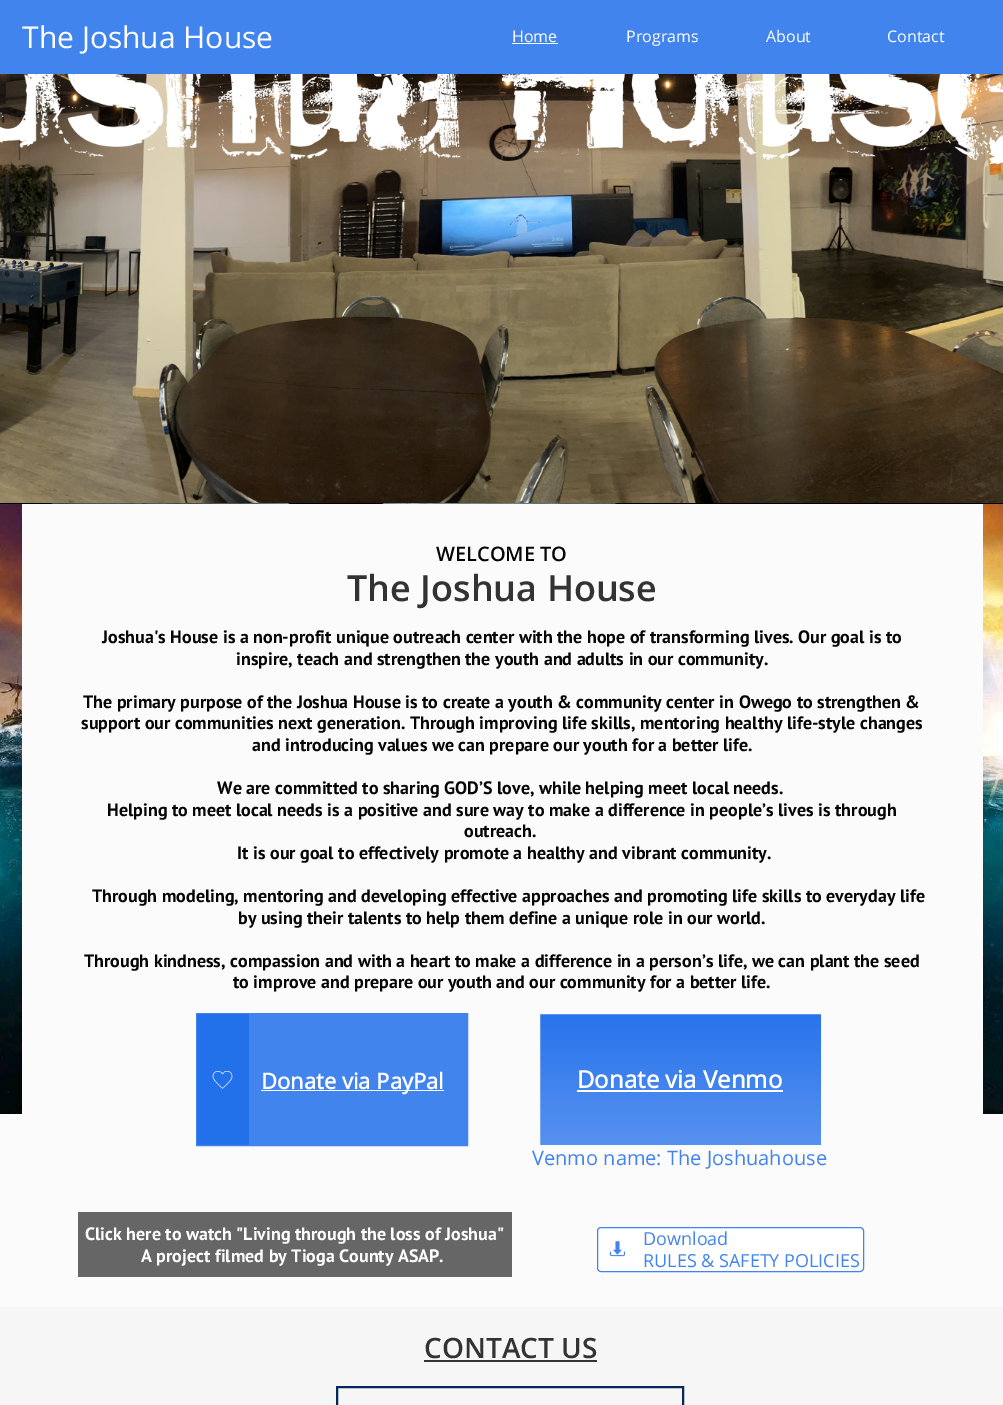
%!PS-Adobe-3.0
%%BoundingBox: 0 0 1003 1405
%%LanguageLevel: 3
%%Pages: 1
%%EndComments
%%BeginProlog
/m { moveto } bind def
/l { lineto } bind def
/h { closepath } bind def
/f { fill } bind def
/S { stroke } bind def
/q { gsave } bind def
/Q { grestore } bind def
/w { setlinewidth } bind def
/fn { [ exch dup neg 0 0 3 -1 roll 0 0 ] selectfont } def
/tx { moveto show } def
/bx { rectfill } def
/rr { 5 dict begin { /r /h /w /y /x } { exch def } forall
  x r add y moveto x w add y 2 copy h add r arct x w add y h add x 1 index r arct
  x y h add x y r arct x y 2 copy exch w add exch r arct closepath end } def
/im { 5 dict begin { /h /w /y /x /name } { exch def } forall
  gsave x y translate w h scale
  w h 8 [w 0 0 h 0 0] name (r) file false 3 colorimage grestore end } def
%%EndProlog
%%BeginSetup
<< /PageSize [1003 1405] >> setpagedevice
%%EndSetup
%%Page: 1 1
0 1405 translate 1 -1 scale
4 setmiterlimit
0.259 0.518 0.933 setrgbcolor
0 0 1003 1405 bx
/OpenSans-Regular 30 fn
1 setgray
(The Joshua House) 22 48 tx
/OpenSans-Regular 16 fn
(Home) 512 42 tx
512 43 46 1 bx
(Programs) 626 42 tx
(About) 766 42 tx
(Contact) 887 42 tx
(image0.raw) 0 74 1003 429 im
(image1.raw) 0 503 1003 1 im
0.984 setgray
0 504 1003 803 bx
(image2.raw) 0 504 22 610 im
/OpenSans-SemiBold 20 fn
0.02 setgray
(WELCOME TO) 436 561 tx
/OpenSans-SemiBold 36 fn
0.2 setgray
(The Joshua House) 347 601 tx
/PTSans-Bold 18 fn
0.02 setgray
(Joshua's House is a non-profit unique outreach center with the hope of transforming lives. Our goal is to) 102 643 tx
(inspire, teach and strengthen the youth and adults in our community.) 236 665 tx
(The primary purpose of the Joshua House is to create a youth & community center in Owego to strengthen &) 83 708 tx
(support our communities next generation. Through improving life skills, mentoring healthy life-style changes) 81 729 tx
(and introducing values we can prepare our youth for a better life.) 252 751 tx
(We are committed to sharing GOD’S love, while helping meet local needs.) 217 794 tx
(Helping to meet local needs is a positive and sure way to make a difference in people’s lives is through) 107 816 tx
(outreach.) 464 837 tx
(It is our goal to effectively promote a healthy and vibrant community.) 237 859 tx
(Through modeling, mentoring and developing effective approaches and promoting life skills to everyday life) 92 902 tx
(by using their talents to help them define a unique role in our world.) 238 924 tx
(Through kindness, compassion and with a heart to make a difference in a person’s life, we can plant the seed) 84 967 tx
(to improve and prepare our youth and our community for a better life.) 233 988 tx
(image3.raw) 983 504 20 610 im
0.259 0.518 0.933 setrgbcolor
249 1014 218 131 bx
196.5 1013.5 271 132 rectstroke
0.137 0.439 0.922 setrgbcolor
197 1014 52 131 bx
(image4.raw) 212 1070 21 19 im
1 setgray
261 1090 183 1 bx
/OpenSans-Bold 22 fn
(Donate via PayPal) 261 1089 tx
q 540 1014 m 821 1014 l 821 1145 l 540 1145 l h clip newpath
<< /ShadingType 2 /ColorSpace /DeviceRGB /Coords [681 1014 681 1145] /Extend [true true] /Function << /FunctionType 2 /Domain [0 1] /C0 [0.157 0.451 0.925] /C1 [0.341 0.569 0.941] /N 1 >> >> shfill Q
0.965 0.976 0.996 setrgbcolor
539.5 1013.5 282 132 rectstroke
/OpenSans-Bold 24 fn
1 setgray
(Donate via Venmo) 577 1088 tx
577 1090 206 2 bx
/OpenSans-Regular 20 fn
0.259 0.518 0.933 setrgbcolor
(Venmo name: The Joshuahouse) 532 1165 tx
0.4 setgray
78 1212 434 65 bx
/PTSans-Bold 18 fn
1 setgray
(Click here to watch "Living through the loss of Joshua") 85 1240 tx
(A project filmed by Tioga County ASAP.) 141 1262 tx
597.5 1227.5 266 44 3.5 rr q f Q
0.259 0.518 0.933 setrgbcolor
S
(image5.raw) 609 1241 17 16 im
/OpenSans-Regular 18 fn
(Download) 643 1245 tx
(RULES & SAFETY POLICIES) 643 1267 tx
0.965 setgray
0 1307 1003 98 bx
/OpenSans-SemiBold 28 fn
0.2 setgray
(CONTACT US) 424 1358 tx
424 1360 173 2 bx
0.031 0.153 0.349 setrgbcolor
2 w
337 1387 346 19 rectstroke
showpage
%%EOF
